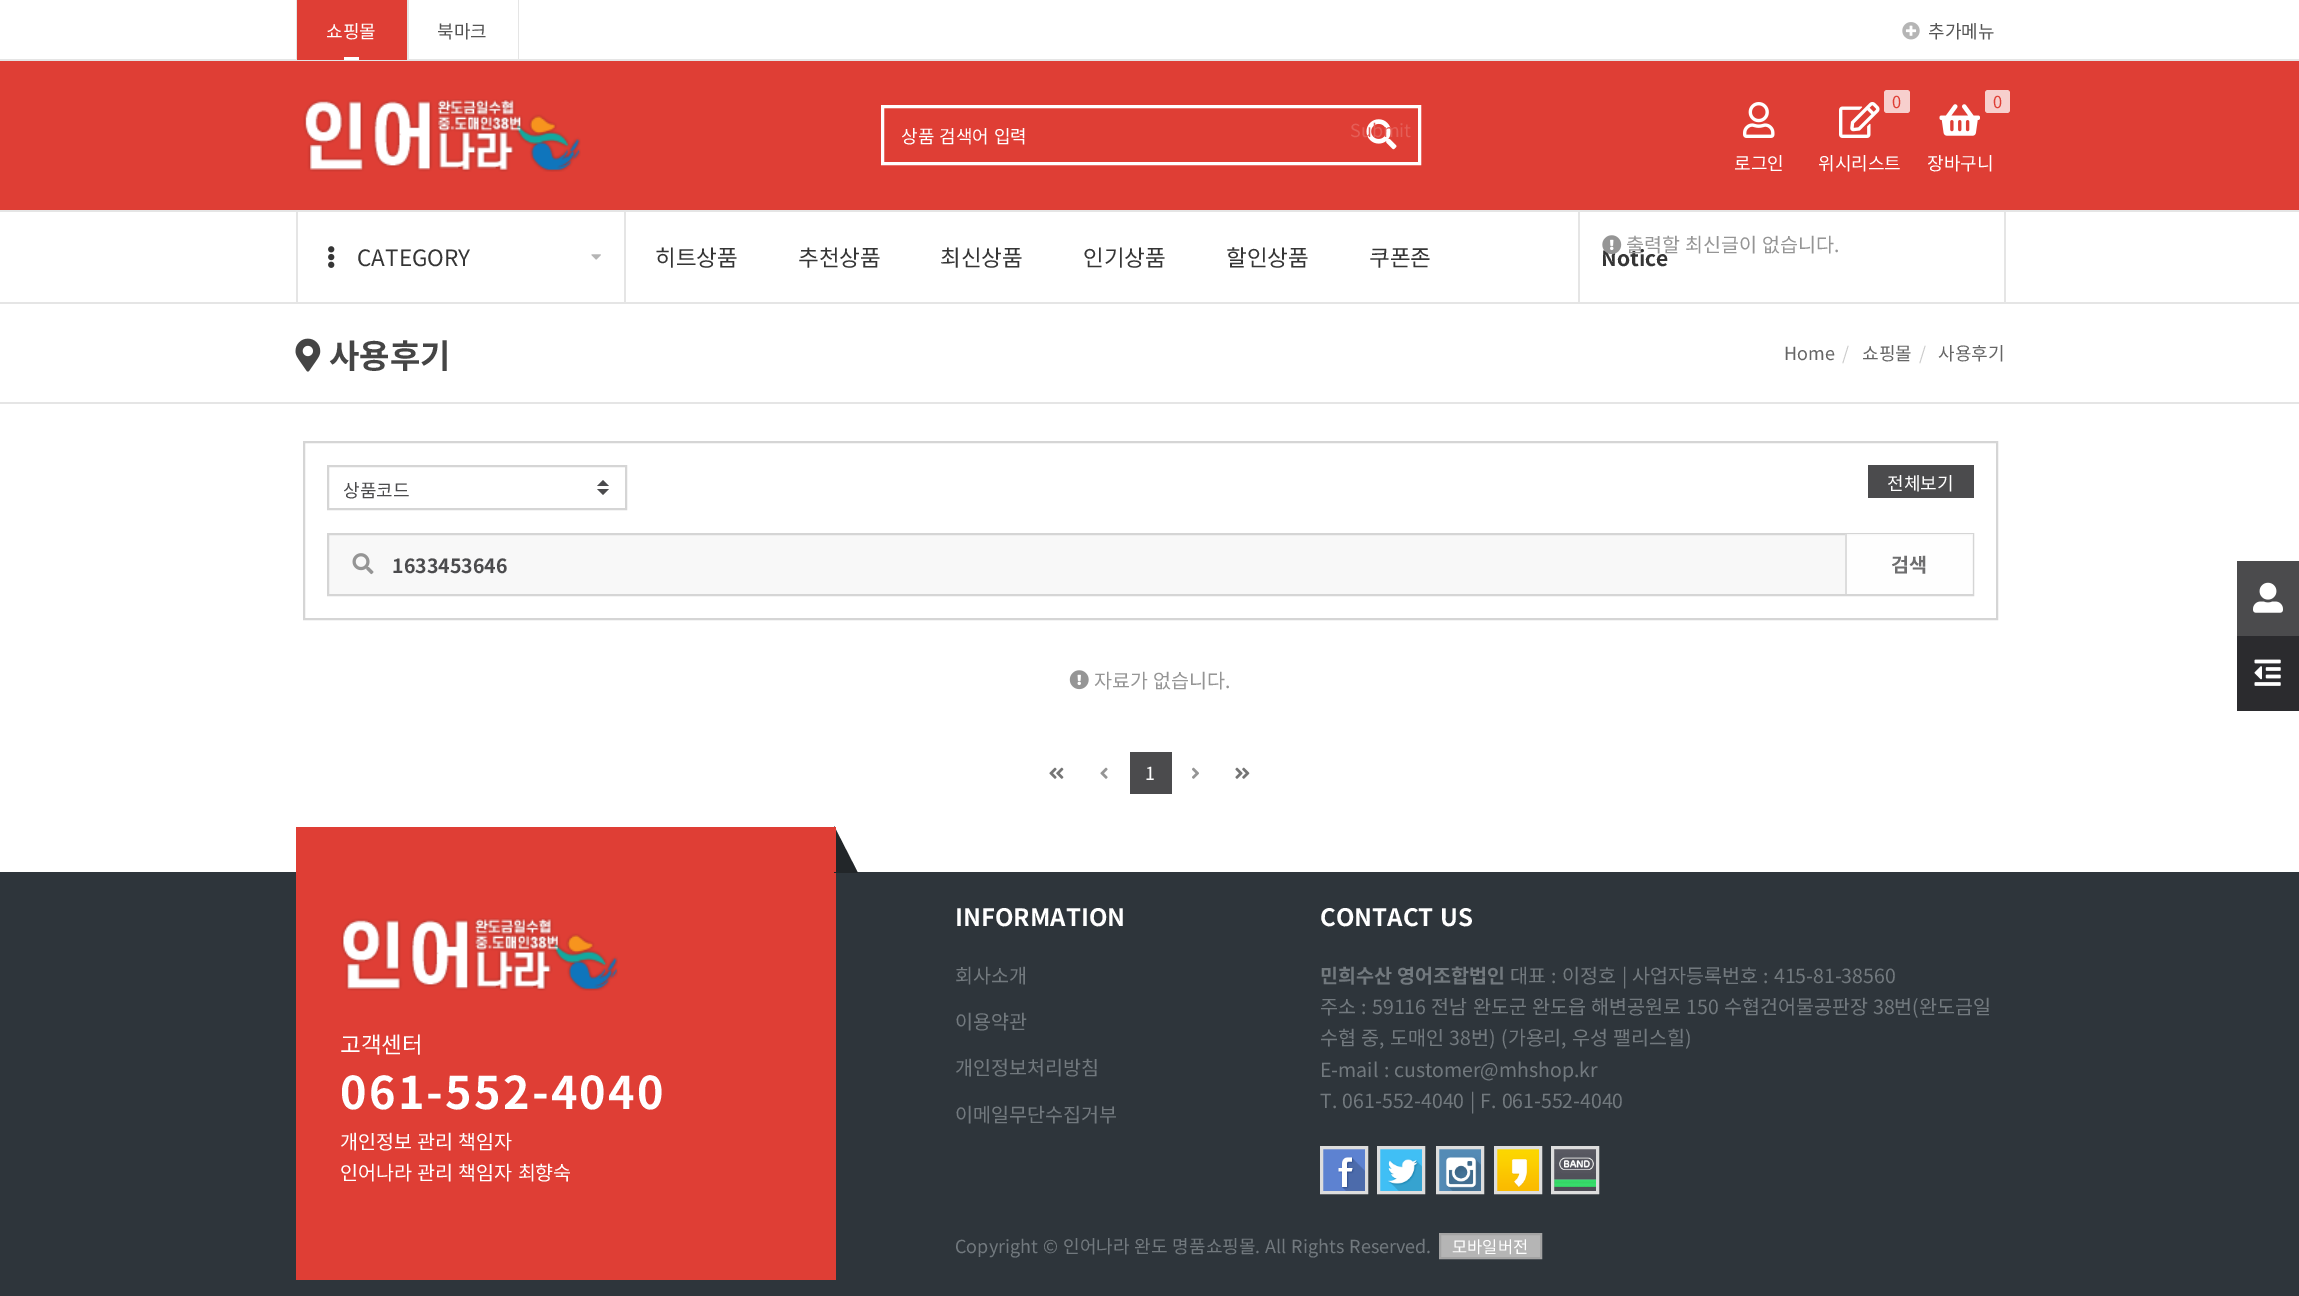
%!PS-Adobe-3.0
%%BoundingBox: 0 0 2299 1296
%%LanguageLevel: 3
%%Pages: 1
%%EndComments
%%BeginProlog
/m { moveto } bind def
/l { lineto } bind def
/h { closepath } bind def
/f { fill } bind def
/S { stroke } bind def
/q { gsave } bind def
/Q { grestore } bind def
/w { setlinewidth } bind def
/fn { [ exch dup neg 0 0 3 -1 roll 0 0 ] selectfont } def
/tx { moveto show } def
/bx { rectfill } def
/al { dup .setfillconstantalpha .setstrokeconstantalpha } def
/rr { 5 dict begin { /r /h /w /y /x } { exch def } forall
  x r add y moveto x w add y 2 copy h add r arct x w add y h add x 1 index r arct
  x y h add x y r arct x y 2 copy exch w add exch r arct closepath end } def
/im { 5 dict begin { /h /w /y /x /name } { exch def } forall
  gsave x y translate w h scale
  w h 8 [w 0 0 h 0 0] name (r) file false 3 colorimage grestore end } def
%%EndProlog
%%BeginSetup
<< /PageSize [2299 1296] /PageUsesTransparency true >> setpagedevice
%%EndSetup
%%Page: 1 1
0 .pushpdf14devicefilter
0 1296 translate 1 -1 scale
4 setmiterlimit
1 setgray
0 0 2299 1296 bx
0.898 setgray
0 59 2299 2 bx
296 0 1 60 bx
407 0 2 60 bx
0.875 0.243 0.208 setrgbcolor
297 0 110 60 bx
/NotoSansKR-Regular 18 fn
1 setgray
(쇼핑몰) 326 38 tx
344 57 15 3 bx
0.898 setgray
518 0 1 60 bx
0.333 setgray
(북마크) 437 38 tx
(image0.raw) 1902 22 18 18 im
(추가메뉴) 1928 38 tx
0.875 0.243 0.208 setrgbcolor
0 61 2299 149 bx
(image1.raw) 303 99 278 73 im
1 setgray
3 w
882.5 106.5 537 57 rectstroke
901 143 m 1 0 32 (상품 검색어 입력) widthshow
(image2.raw) 1366 119 31 31 im
0.894 0.369 0.341 setrgbcolor
(Submit) 1350 137 tx
(image3.raw) 1743 102 32 36 im
1 setgray
(로그인) 1734 170 tx
(image4.raw) 1839 102 41 36 im
0.969 0.812 0.804 setrgbcolor
1884 90 26 23 3 rr f
/NotoSansKR-Regular 16.5 fn
0.875 0.243 0.208 setrgbcolor
(0) 1892 108 tx
/NotoSansKR-Regular 18 fn
1 setgray
(위시리스트) 1818 170 tx
0.969 0.812 0.804 setrgbcolor
1985 90 25 23 3 rr f
/NotoSansKR-Regular 16.5 fn
0.875 0.243 0.208 setrgbcolor
(0) 1993 108 tx
(image5.raw) 1939 104 41 32 im
/NotoSansKR-Regular 18 fn
1 setgray
(장바구니) 1927 170 tx
0.898 setgray
0 210 2299 2 bx
0 302 2299 2 bx
624 212 2 90 bx
296 212 2 90 bx
(image6.raw) 328 246 7 22 im
/NotoSansKR-Regular 22.5 fn
0.208 setgray
(CATEGORY) 357 266 tx
(image7.raw) 591 254 10 6 im
(히트상품) 655 266 tx
(추천상품) 798 266 tx
(최신상품) 940 266 tx
(인기상품) 1083 266 tx
(할인상품) 1226 266 tx
(쿠폰존) 1369 266 tx
0.898 setgray
2004 212 2 90 bx
1578 212 2 90 bx
/NotoSansKR-Bold 21 fn
0.208 setgray
(Notice) 1601 266 tx
(image8.raw) 1602 235 20 20 im
/NotoSansKR-Regular 19.5 fn
0.584 setgray
1626 252 m 1 0 32 (출력할 최신글이 없습니다.) widthshow
0.898 setgray
0 402 2299 2 bx
(image9.raw) 295 338 26 34 im
/NotoSansKR-Bold 33 fn
0.271 setgray
(사용후기) 329 368 tx
/NotoSansKR-Regular 18 fn
0.396 setgray
(Home) 1784 360 tx
0.8 setgray
(/) 1842 360 tx
0.396 setgray
(쇼핑몰) 1862 360 tx
0.8 setgray
(/) 1919 360 tx
0.396 setgray
(사용후기) 1938 360 tx
0.835 setgray
2 w
304 442 1693 177 rectstroke
328 466 298 43 rectstroke
0.294 0.294 0.302 setrgbcolor
(상품코드) 343 497 tx
609 486 m 597 486 l 603 480 l h 597 489 m 609 489 l 603 495 l h f
1868 465 106 33 bx
1 setgray
(전체보기) 1887 490 tx
0.973 setgray
328 534 m 1973 534 l 1973 595 l 328 595 l h q f Q
0.835 setgray
S
(image10.raw) 352 553 22 22 im
/NotoSansKR-Bold 19.5 fn
0.294 0.294 0.302 setrgbcolor
(1633453646) 392 573 tx
0.8 al
1 setgray
1845 534 128 60 bx
0.835 setgray
1845 534 2 60 bx
1 al
0.431 0.431 0.435 setrgbcolor
(검색) 1891 572 tx
(image11.raw) 1069 670 20 20 im
/NotoSansKR-Regular 19.5 fn
0.584 setgray
1094 688 m 1 0 32 (자료가 없습니다.) widthshow
(image12.raw) 1049 767 15 12 im
(image13.raw) 1100 767 8 12 im
0.294 0.294 0.302 setrgbcolor
1130 752 42 42 bx
/NotoSansKR-Regular 18 fn
1 setgray
(1) 1145 780 tx
(image14.raw) 1192 767 7 12 im
(image15.raw) 1235 767 15 12 im
0.18 0.208 0.231 setrgbcolor
0 872 2299 424 bx
0.875 0.243 0.208 setrgbcolor
296 872 540 408 bx
0.133 0.149 0.161 setrgbcolor
858 873 m 834 873 l 834 826 l h f
0.875 0.243 0.208 setrgbcolor
296 827 540 45 bx
(image16.raw) 341 918 277 73 im
/NotoSansKR-Regular 22.5 fn
1 setgray
(고객센터) 340 1053 tx
/NotoSansKR-Bold 45 fn
340 1109 m 2.25 0 (061-552-4040) ashow
/NotoSansKR-Regular 19.5 fn
340 1149 m 1 0 32 (개인정보 관리 책임자) widthshow
340 1180 m 1 0 32 (인어나라 관리 책임자 최향숙) widthshow
/NotoSansKR-Bold 24 fn
(INFORMATION) 955 926 tx
/NotoSansKR-Regular 19.5 fn
0.447 0.475 0.494 setrgbcolor
(회사소개) 955 983 tx
(이용약관) 955 1029 tx
(개인정보처리방침) 955 1075 tx
(이메일무단수집거부) 955 1122 tx
/NotoSansKR-Bold 24 fn
1 setgray
1320 926 m 1 0 32 (CONTACT US) widthshow
/NotoSansKR-Bold 19.5 fn
0.447 0.475 0.494 setrgbcolor
1320 983 m 1 0 32 (민희수산 영어조합법인) widthshow
/NotoSansKR-Regular 19.5 fn
1510 983 m 1 0 32 (대표 : 이정호) widthshow
(|) 1622 983 tx
1632 983 m 1 0 32 (사업자등록번호 : 415-81-38560) widthshow
1320 1014 m 1 0 32 (주소 : 59116 전남 완도군 완도읍 해변공원로 150 수협건어물공판장 38번\(완도금일) widthshow
1320 1045 m 1 0 32 (수협 중, 도매인 38번\)) widthshow
1501 1045 m 1 0 32 (\(가용리, 우성 팰리스힐\)) widthshow
1320 1077 m 1 0 32 (E-mail :) widthshow
(customer@mhshop.kr) 1394 1077 tx
1320 1108 m 1 0 32 (T. 061-552-4040) widthshow
(|) 1470 1108 tx
1480 1108 m 1 0 32 (F. 061-552-4040) widthshow
(image17.raw) 1323 1149 42 42 im
0.867 setgray
3 w
1321.5 1147.5 45 45 rectstroke
(image18.raw) 1380 1149 42 42 im
1378.5 1147.5 45 45 rectstroke
(image19.raw) 1439 1149 42 42 im
1437.5 1147.5 45 45 rectstroke
(image20.raw) 1497 1149 42 42 im
1495.5 1147.5 45 45 rectstroke
(image21.raw) 1554 1149 42 42 im
1552.5 1147.5 45 45 rectstroke
/NotoSansKR-Regular 18 fn
0.447 0.475 0.494 setrgbcolor
(Copyright) 955 1253 tx
1043 1253 m 1 0 32 (© 인어나라 완도 명품쇼핑몰. All Rights Reserved.) widthshow
0.71 setgray
1440 1234 m 1541 1234 l 1541 1258 l 1440 1258 l h q f Q
0.639 setgray
2 w
S
/NotoSansKR-Regular 16.5 fn
1 setgray
(모바일버전) 1452 1253 tx
0.294 0.294 0.302 setrgbcolor
2237 561 62 75 bx
(image22.raw) 2253 582 30 31 im
0.169 0.169 0.18 setrgbcolor
2237 636 62 75 bx
(image23.raw) 2254 659 27 27 im
.poppdf14devicefilter showpage
%%EOF
